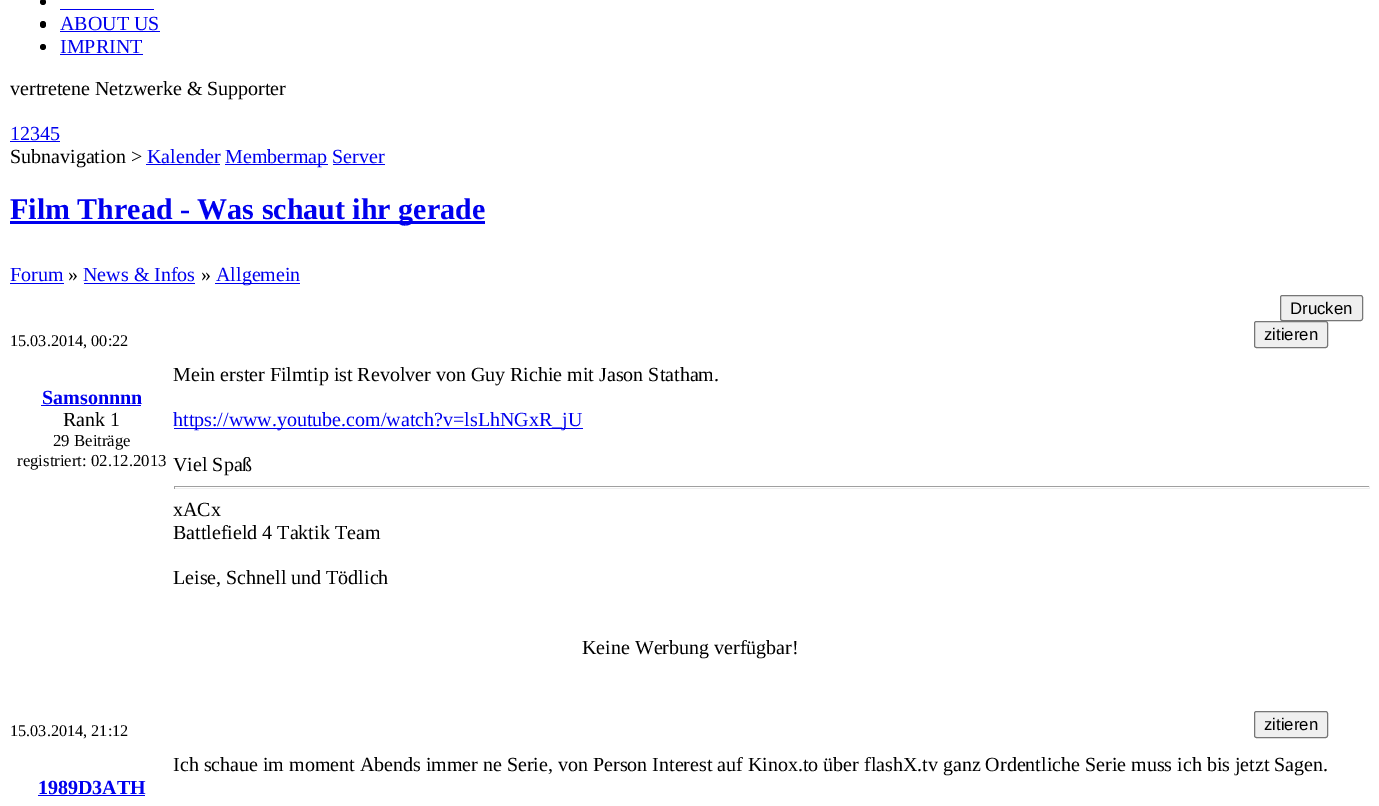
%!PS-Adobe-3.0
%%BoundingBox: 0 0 1379 806
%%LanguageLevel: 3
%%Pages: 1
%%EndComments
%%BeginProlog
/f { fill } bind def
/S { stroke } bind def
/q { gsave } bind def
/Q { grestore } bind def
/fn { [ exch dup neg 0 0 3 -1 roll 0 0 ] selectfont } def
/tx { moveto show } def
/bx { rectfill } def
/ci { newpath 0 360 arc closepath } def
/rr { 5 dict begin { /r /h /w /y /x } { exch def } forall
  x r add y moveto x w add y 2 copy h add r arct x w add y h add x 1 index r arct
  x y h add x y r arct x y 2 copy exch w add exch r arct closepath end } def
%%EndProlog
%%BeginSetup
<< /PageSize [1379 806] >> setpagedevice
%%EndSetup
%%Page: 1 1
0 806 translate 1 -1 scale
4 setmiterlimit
1 setgray
0 0 1379 806 bx
0 setgray
43 2 3 ci f
0 0 0.933 setrgbcolor
60 9 94 1 bx
0 setgray
40 21 6 7 3 rr f
/LiberationSerif-Regular 20 fn
0 0 0.933 setrgbcolor
(ABOUT US) 60 30 tx
60 31 100 1 bx
0 setgray
43 47 3 ci f
0 0 0.933 setrgbcolor
(IMPRINT) 60 53 tx
60 54 83 1 bx
0 setgray
(vertretene Netzwerke & Supporter) 10 95 tx
0 0 0.933 setrgbcolor
(12345) 10 140 tx
10 141 50 1 bx
0 setgray
(Subnavigation >) 10 163 tx
0 0 0.933 setrgbcolor
(Kalender) 147 163 tx
146 164 74 1 bx
225 164 103 1 bx
(Membermap Server) 225 163 tx
333 164 52 1 bx
10 221 475 3 bx
/LiberationSerif-Bold 30 fn
(Film Thread - Was schaut ihr gerade) 10 219 tx
/LiberationSerif-Regular 20 fn
(Forum) 10 281 tx
10 283 54 1 bx
0 setgray
(») 68 281 tx
0 0 0.933 setrgbcolor
(News & Infos) 83 281 tx
84 283 111 1 bx
0 setgray
(») 201 281 tx
0 0 0.933 setrgbcolor
215 283 85 1 bx
(Allgemein) 216 281 tx
0.937 setgray
1280.5 295.5 82 25 2 rr q f Q
0.463 setgray
S
/LiberationSans-Regular 16.75 fn
0 setgray
(Drucken) 1290 314 tx
/LiberationSerif-Regular 16.25 fn
(15.03.2014, 00:22) 10 346 tx
0.937 setgray
1254.5 321.5 73 26 2 rr q f Q
0.463 setgray
S
/LiberationSans-Regular 16.75 fn
0 setgray
(zitieren) 1264 340 tx
/LiberationSerif-Bold 20 fn
0 0 0.933 setrgbcolor
(Samsonnnn) 42 404 tx
41 405 100 1 bx
/LiberationSerif-Regular 20 fn
0 setgray
(Rank 1) 63 426 tx
/LiberationSerif-Regular 16.75 fn
(29 Beiträge) 53 446 tx
(registriert: 02.12.2013) 17 466 tx
/LiberationSerif-Regular 20 fn
(Mein erster Filmtip ist Revolver von Guy Richie mit Jason Statham.) 173 381 tx
0 0 0.933 setrgbcolor
174 428 409 1 bx
(https://www.youtube.com/watch?v=lsLhNGxR_jU) 173 426 tx
0 setgray
(Viel Spaß) 173 471 tx
0.624 setgray
174 486 1196 1 bx
0.933 setgray
1369 486 1 3 bx
174 488 1196 1 bx
0.624 setgray
174 486 1 3 bx
0 setgray
(xACx) 173 516 tx
(Battlefield 4 Taktik Team) 173 539 tx
(Leise, Schnell und Tödlich) 173 584 tx
(Keine Werbung verfügbar!) 582 654 tx
/LiberationSerif-Regular 16.25 fn
(15.03.2014, 21:12) 10 736 tx
0.937 setgray
1254.5 711.5 73 26 2 rr q f Q
0.463 setgray
S
/LiberationSans-Regular 16.75 fn
0 setgray
(zitieren) 1264 730 tx
/LiberationSerif-Regular 20 fn
(Ich schaue im moment Abends immer ne Serie, von Person Interest auf Kinox.to über flashX.tv ganz Ordentliche Serie muss ich bis jetzt Sagen.) 173 771 tx
/LiberationSerif-Bold 20 fn
0 0 0.933 setrgbcolor
(1989D3ATH) 38 794 tx
38 795 107 1 bx
showpage
%%EOF
